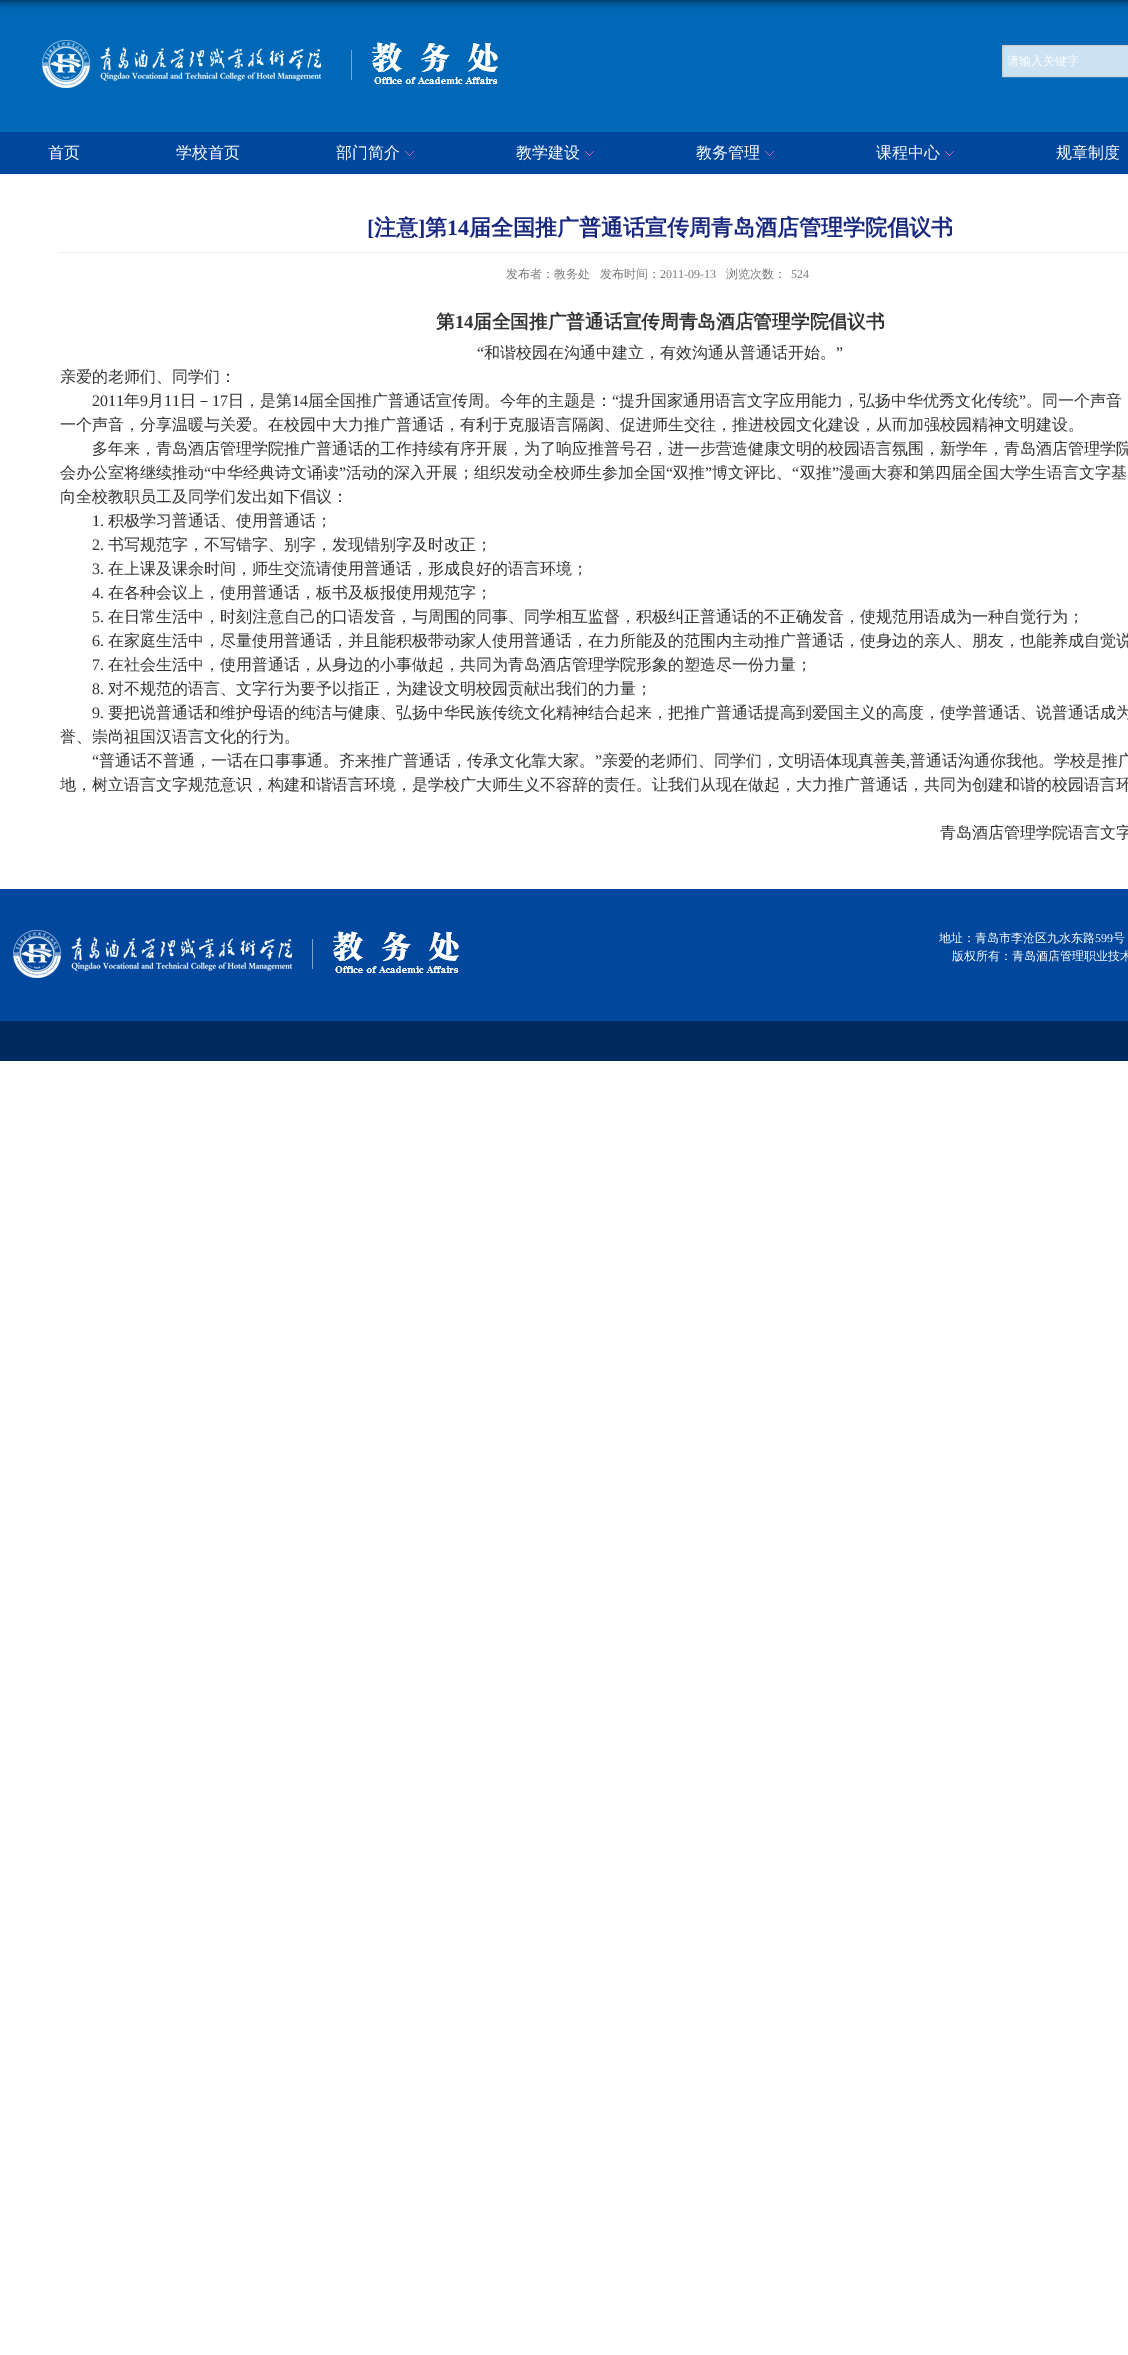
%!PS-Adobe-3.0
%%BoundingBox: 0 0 1128 2355
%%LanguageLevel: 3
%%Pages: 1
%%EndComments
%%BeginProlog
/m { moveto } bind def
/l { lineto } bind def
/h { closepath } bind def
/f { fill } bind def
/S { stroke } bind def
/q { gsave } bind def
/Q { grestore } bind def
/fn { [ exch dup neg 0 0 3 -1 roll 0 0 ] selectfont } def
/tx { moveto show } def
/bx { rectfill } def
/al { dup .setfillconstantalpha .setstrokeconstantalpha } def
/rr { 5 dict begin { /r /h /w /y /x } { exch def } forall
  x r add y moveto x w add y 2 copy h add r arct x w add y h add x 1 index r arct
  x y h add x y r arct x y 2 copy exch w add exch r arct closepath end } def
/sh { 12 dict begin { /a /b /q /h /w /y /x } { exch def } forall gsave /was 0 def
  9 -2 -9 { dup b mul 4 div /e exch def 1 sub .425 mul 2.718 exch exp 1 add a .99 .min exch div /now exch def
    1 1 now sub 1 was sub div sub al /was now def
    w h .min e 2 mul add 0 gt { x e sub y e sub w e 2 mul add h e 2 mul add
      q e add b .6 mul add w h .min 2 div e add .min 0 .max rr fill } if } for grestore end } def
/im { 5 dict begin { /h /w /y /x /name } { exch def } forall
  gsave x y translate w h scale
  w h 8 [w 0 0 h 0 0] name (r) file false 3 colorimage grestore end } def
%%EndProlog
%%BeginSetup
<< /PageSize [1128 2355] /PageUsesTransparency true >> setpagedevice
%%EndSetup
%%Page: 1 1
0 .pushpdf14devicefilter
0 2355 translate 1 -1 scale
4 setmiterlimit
1 setgray
0 0 1128 2355 bx
0 0.408 0.718 setrgbcolor
0 0 1128 132 bx
0 setgray
0 -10 1128 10 0 5 0.8 sh
(image0.raw) 42 40 279 48 im
0.502 0.639 0.808 setrgbcolor
351 50 1 30 bx
(image1.raw) 372 42 126 42 im
0.8 0.882 0.945 setrgbcolor
1002.5 45.5 m 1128.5 45.5 l 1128.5 76.5 l 1002.5 76.5 l h q f Q
0.816 setgray
S
/WenQuanYiZenHei-Medium 12 fn
1 setgray
(请输入关键字) 1007 65 tx
0 0.278 0.616 setrgbcolor
0 132 1128 42 bx
/WenQuanYiZenHei-Medium 16 fn
1 setgray
(首页) 48 158 tx
(学校首页) 176 158 tx
(部门简介) 336 158 tx
(image2.raw) 405 151 9 5 im
(教学建设) 516 158 tx
(image2.raw) 585 151 9 5 im
(教务管理) 696 158 tx
(image2.raw) 765 151 9 5 im
(课程中心) 876 158 tx
(image2.raw) 945 151 9 5 im
(规章制度) 1056 158 tx
/LiberationSerif-Bold 22 fn
0.094 0.157 0.502 setrgbcolor
([) 367 235 tx
/WenQuanYiZenHei-Bold 22 fn
(注意) 374 235 tx
/LiberationSerif-Bold 22 fn
(]) 418 235 tx
/WenQuanYiZenHei-Bold 22 fn
(第) 425 235 tx
/LiberationSerif-Bold 22 fn
(14) 447 235 tx
/WenQuanYiZenHei-Bold 22 fn
(届全国推广普通话宣传周青岛酒店管理学院倡议书) 469 235 tx
0.925 setgray
60 252 1068 1 bx
/WenQuanYiZenHei-Medium 12 fn
0.471 setgray
(发布者：教务处) 506 278 tx
(发布时间：) 600 278 tx
/LiberationSerif-Regular 12 fn
(2011-09-13) 660 278 tx
/WenQuanYiZenHei-Medium 12 fn
(浏览次数：) 726 278 tx
/LiberationSerif-Regular 12 fn
(524) 791 278 tx
/WenQuanYiZenHei-Bold 18.7 fn
0.2 setgray
(第) 436 328 tx
/LiberationSerif-Bold 18.7 fn
(14) 455 328 tx
/WenQuanYiZenHei-Bold 18.7 fn
(届全国推广普通话宣传周青岛酒店管理学院倡议书) 473 328 tx
/LiberationSerif-Regular 16 fn
(“) 477 358 tx
/WenQuanYiZenHei-Medium 16 fn
(和谐校园在沟通中建立，有效沟通从普通话开始。) 484 358 tx
/LiberationSerif-Regular 16 fn
(”) 836 358 tx
/WenQuanYiZenHei-Medium 16 fn
(亲爱的老师们、同学们：) 60 382 tx
/LiberationSerif-Regular 16 fn
(2011) 92 406 tx
/WenQuanYiZenHei-Medium 16 fn
(年) 124 406 tx
/LiberationSerif-Regular 16 fn
(9) 140 406 tx
/WenQuanYiZenHei-Medium 16 fn
(月) 148 406 tx
/LiberationSerif-Regular 16 fn
(11) 164 406 tx
/WenQuanYiZenHei-Medium 16 fn
(日－) 180 406 tx
/LiberationSerif-Regular 16 fn
(17) 212 406 tx
/WenQuanYiZenHei-Medium 16 fn
(日，是第) 228 406 tx
/LiberationSerif-Regular 16 fn
(14) 292 406 tx
/WenQuanYiZenHei-Medium 16 fn
(届全国推广普通话宣传周。今年的主题是：) 308 406 tx
/LiberationSerif-Regular 16 fn
(“) 612 406 tx
/WenQuanYiZenHei-Medium 16 fn
(提升国家通用语言文字应用能力，弘扬中华优秀文化传统) 619 406 tx
/LiberationSerif-Regular 16 fn
(”) 1019 406 tx
/WenQuanYiZenHei-Medium 16 fn
(。同一个声音) 1026 406 tx
(一个声音，分享温暖与关爱。在校园中大力推广普通话，有利于克服语言隔阂、促进师生交往，推进校园文化建设，从而加强校园精神文明建设。) 60 430 tx
(多年来，青岛酒店管理学院推广普通话的工作持续有序开展，为了响应推普号召，进一步营造健康文明的校园语言氛围，新学年，青岛酒店管理学院) 92 454 tx
(会办公室将继续推动) 60 478 tx
/LiberationSerif-Regular 16 fn
(“) 204 478 tx
/WenQuanYiZenHei-Medium 16 fn
(中华经典诗文诵读) 211 478 tx
/LiberationSerif-Regular 16 fn
(”) 339 478 tx
/WenQuanYiZenHei-Medium 16 fn
(活动的深入开展；组织发动全校师生参加全国) 346 478 tx
/LiberationSerif-Regular 16 fn
(“) 666 478 tx
/WenQuanYiZenHei-Medium 16 fn
(双推) 673 478 tx
/LiberationSerif-Regular 16 fn
(”) 705 478 tx
/WenQuanYiZenHei-Medium 16 fn
(博文评比、) 712 478 tx
/LiberationSerif-Regular 16 fn
(“) 792 478 tx
/WenQuanYiZenHei-Medium 16 fn
(双推) 800 478 tx
/LiberationSerif-Regular 16 fn
(”) 832 478 tx
/WenQuanYiZenHei-Medium 16 fn
(漫画大赛和第四届全国大学生语言文字基) 839 478 tx
(向全校教职员工及同学们发出如下倡议：) 60 502 tx
/LiberationSerif-Regular 16 fn
(1.) 92 526 tx
/WenQuanYiZenHei-Medium 16 fn
(积极学习普通话、使用普通话；) 108 526 tx
/LiberationSerif-Regular 16 fn
(2.) 92 550 tx
/WenQuanYiZenHei-Medium 16 fn
(书写规范字，不写错字、别字，发现错别字及时改正；) 108 550 tx
/LiberationSerif-Regular 16 fn
(3.) 92 574 tx
/WenQuanYiZenHei-Medium 16 fn
(在上课及课余时间，师生交流请使用普通话，形成良好的语言环境；) 108 574 tx
/LiberationSerif-Regular 16 fn
(4.) 92 598 tx
/WenQuanYiZenHei-Medium 16 fn
(在各种会议上，使用普通话，板书及板报使用规范字；) 108 598 tx
/LiberationSerif-Regular 16 fn
(5.) 92 622 tx
/WenQuanYiZenHei-Medium 16 fn
(在日常生活中，时刻注意自己的口语发音，与周围的同事、同学相互监督，积极纠正普通话的不正确发音，使规范用语成为一种自觉行为；) 108 622 tx
/LiberationSerif-Regular 16 fn
(6.) 92 646 tx
/WenQuanYiZenHei-Medium 16 fn
(在家庭生活中，尽量使用普通话，并且能积极带动家人使用普通话，在力所能及的范围内主动推广普通话，使身边的亲人、朋友，也能养成自觉说) 108 646 tx
/LiberationSerif-Regular 16 fn
(7.) 92 670 tx
/WenQuanYiZenHei-Medium 16 fn
(在社会生活中，使用普通话，从身边的小事做起，共同为青岛酒店管理学院形象的塑造尽一份力量；) 108 670 tx
/LiberationSerif-Regular 16 fn
(8.) 92 694 tx
/WenQuanYiZenHei-Medium 16 fn
(对不规范的语言、文字行为要予以指正，为建设文明校园贡献出我们的力量；) 108 694 tx
/LiberationSerif-Regular 16 fn
(9.) 92 718 tx
/WenQuanYiZenHei-Medium 16 fn
(要把说普通话和维护母语的纯洁与健康、弘扬中华民族传统文化精神结合起来，把推广普通话提高到爱国主义的高度，使学普通话、说普通话成为) 108 718 tx
(誉、崇尚祖国汉语言文化的行为。) 60 742 tx
/LiberationSerif-Regular 16 fn
(“) 92 766 tx
/WenQuanYiZenHei-Medium 16 fn
(普通话不普通，一话在口事事通。齐来推广普通话，传承文化靠大家。) 99 766 tx
/LiberationSerif-Regular 16 fn
(”) 595 766 tx
/WenQuanYiZenHei-Medium 16 fn
(亲爱的老师们、同学们，文明语体现真善美) 602 766 tx
(普通话沟通你我他。学校是推广) 910 766 tx
/LiberationSerif-Regular 16 fn
(,) 906 766 tx
/WenQuanYiZenHei-Medium 16 fn
(地，树立语言文字规范意识，构建和谐语言环境，是学校广大师生义不容辞的责任。让我们从现在做起，大力推广普通话，共同为创建和谐的校园语言环) 60 790 tx
(青岛酒店管理学院语言文字) 940 838 tx
0 0.278 0.616 setrgbcolor
0 889 1128 132 bx
(image3.raw) 13 930 279 48 im
0.502 0.639 0.808 setrgbcolor
312 939 1 30 bx
(image4.raw) 333 931 126 42 im
/WenQuanYiZenHei-Medium 12 fn
1 setgray
(地址：青岛市李沧区九水东路) 939 942 tx
/LiberationSerif-Regular 12 fn
(599) 1095 942 tx
/WenQuanYiZenHei-Medium 12 fn
(号) 1113 942 tx
(版权所有：青岛酒店管理职业技术) 952 960 tx
0 0.169 0.376 setrgbcolor
0 1021 1128 40 bx
.poppdf14devicefilter showpage
%%EOF
